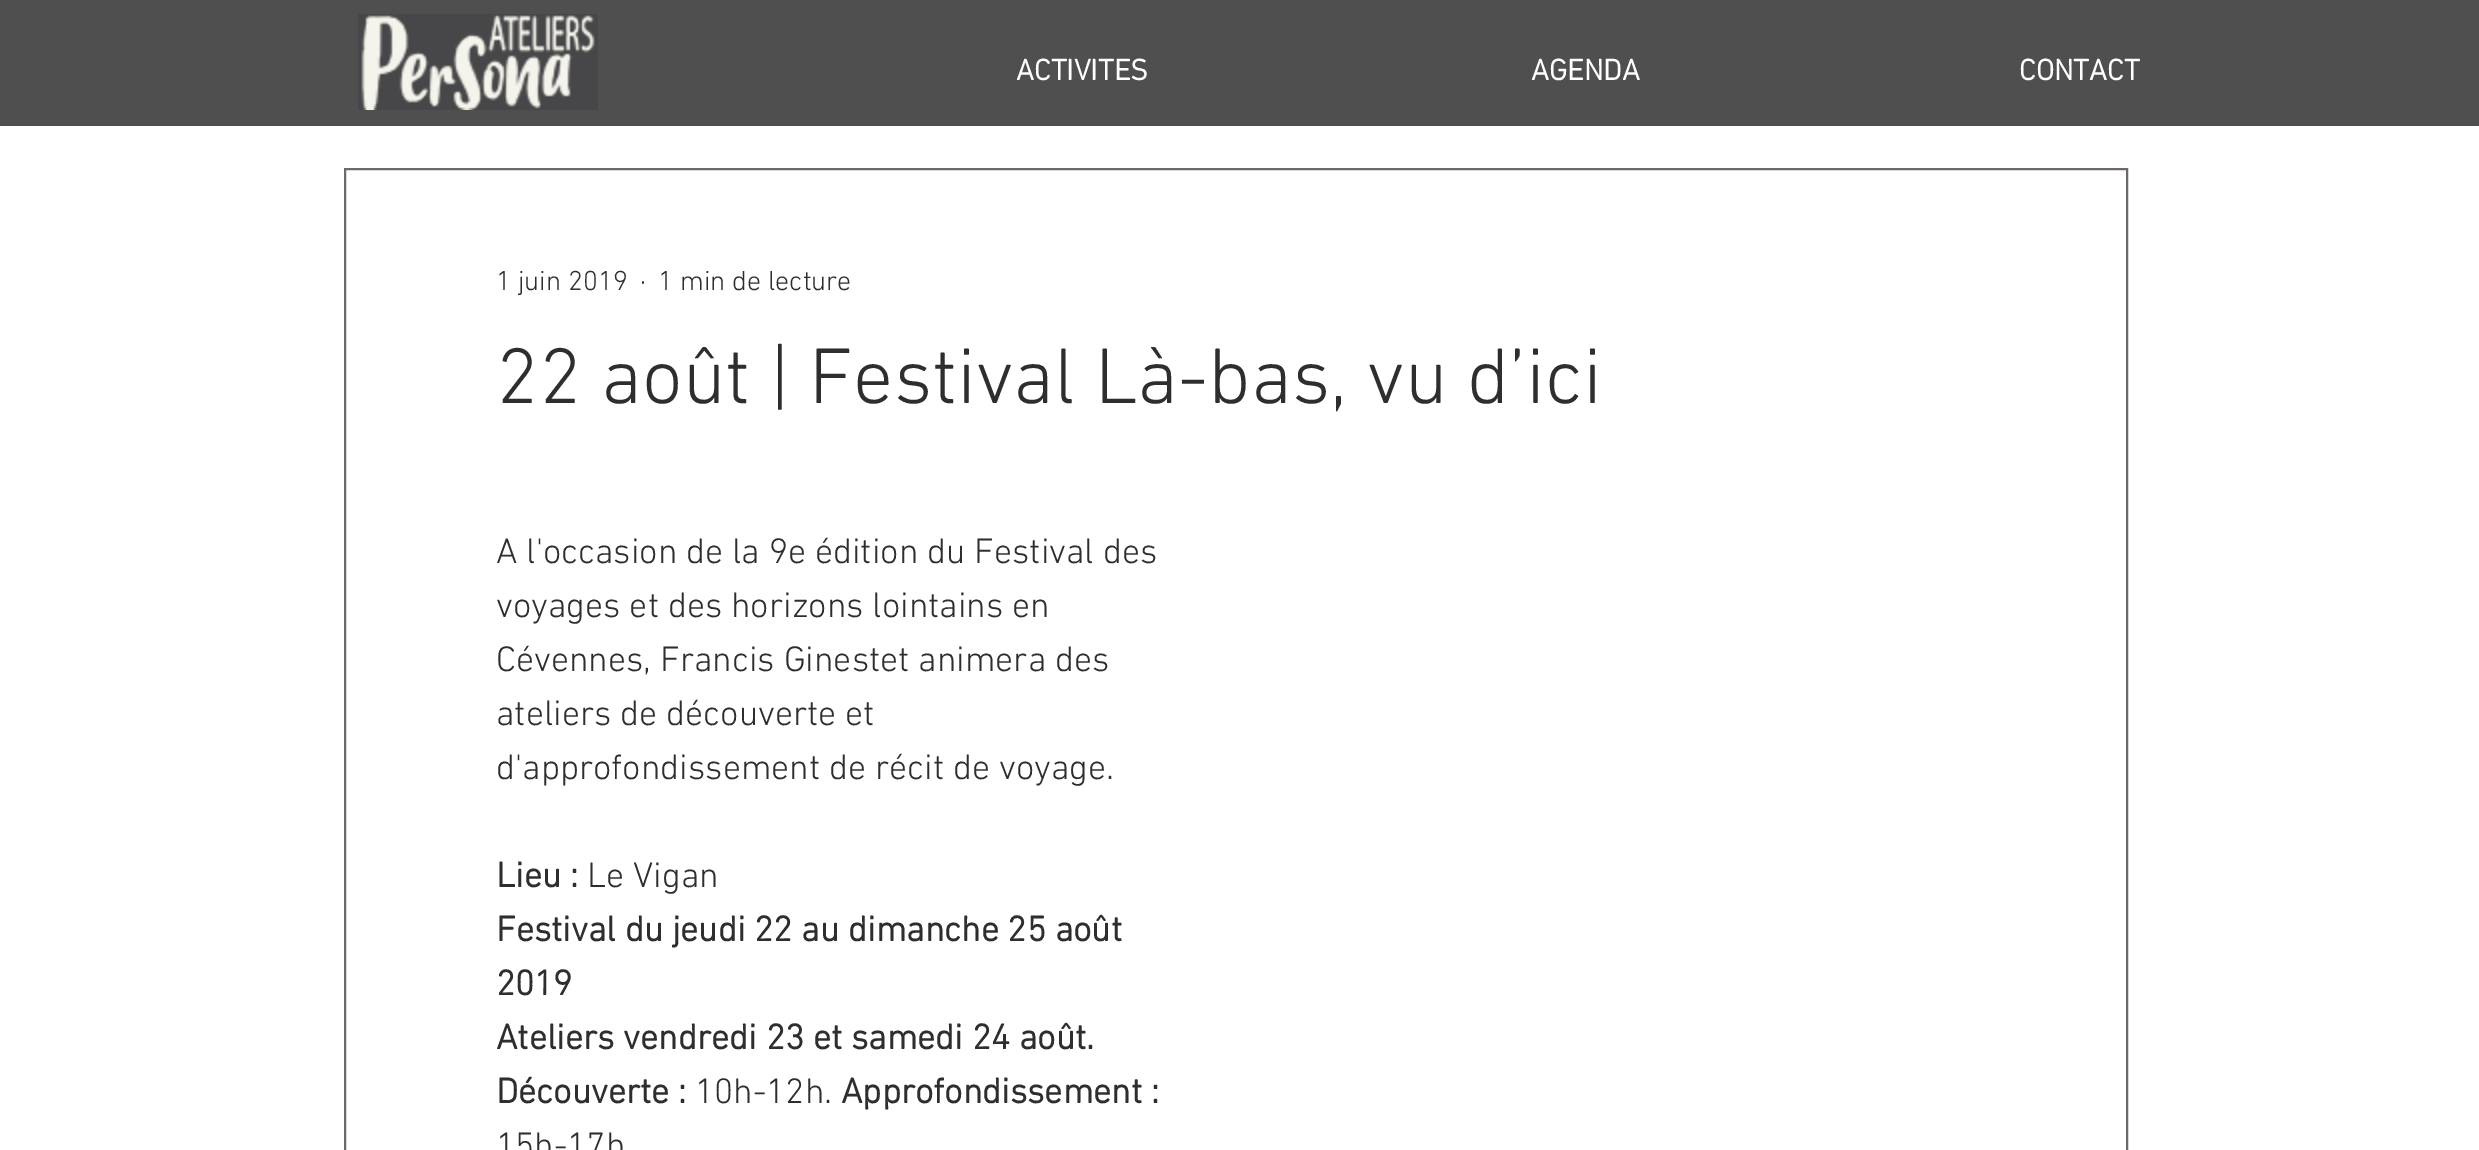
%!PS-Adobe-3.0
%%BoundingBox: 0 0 2479 1150
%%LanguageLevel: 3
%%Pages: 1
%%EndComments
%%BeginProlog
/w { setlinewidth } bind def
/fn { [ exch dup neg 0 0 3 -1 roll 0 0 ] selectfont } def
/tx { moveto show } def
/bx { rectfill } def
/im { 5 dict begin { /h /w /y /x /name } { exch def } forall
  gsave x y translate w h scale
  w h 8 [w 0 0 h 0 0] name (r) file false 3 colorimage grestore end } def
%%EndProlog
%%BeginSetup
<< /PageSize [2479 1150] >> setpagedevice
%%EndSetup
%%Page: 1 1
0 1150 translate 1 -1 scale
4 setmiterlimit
1 setgray
0 0 2479 1150 bx
0.31 setgray
0 0 2479 126 bx
(image0.raw) 358 14 240 96 im
/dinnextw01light-Bold 30 fn
1 setgray
(ACTIVITES) 1016 80 tx
(AGENDA) 1531 80 tx
(CONTACT) 2019 80 tx
0.431 0.412 0.408 setrgbcolor
2 w
345 169 1782 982 rectstroke
/dinnextw01light-Light 28 fn
0.184 0.18 0.18 setrgbcolor
(1 juin 2019) 496 290 tx
(·) 640 290 tx
(1 min de lecture) 658 290 tx
/dinnextw01light-Light 80 fn
(22 août | Festival Là-bas, vu d’ici) 496 403 tx
/dinnextw01light-Light 36 fn
(A l'occasion de la 9e édition du Festival des) 496 563 tx
(voyages et des horizons lointains en) 496 617 tx
(Cévennes, Francis Ginestet animera des) 496 671 tx
(ateliers de découverte et) 496 725 tx
(d'approfondissement de récit de voyage.) 496 779 tx
/dinnextw01light-Bold 36 fn
(Lieu :) 496 887 tx
/dinnextw01light-Light 36 fn
(Le Vigan) 587 887 tx
/dinnextw01light-Bold 36 fn
(Festival du jeudi 22 au dimanche 25 août) 496 941 tx
(2019) 496 995 tx
(Ateliers vendredi 23 et samedi 24 août.) 496 1049 tx
(Découverte :) 496 1103 tx
/dinnextw01light-Light 36 fn
(10h-12h.) 695 1103 tx
/dinnextw01light-Bold 36 fn
(Approfondissement :) 841 1103 tx
/dinnextw01light-Light 36 fn
(15h-17h) 496 1157 tx
showpage
%%EOF
